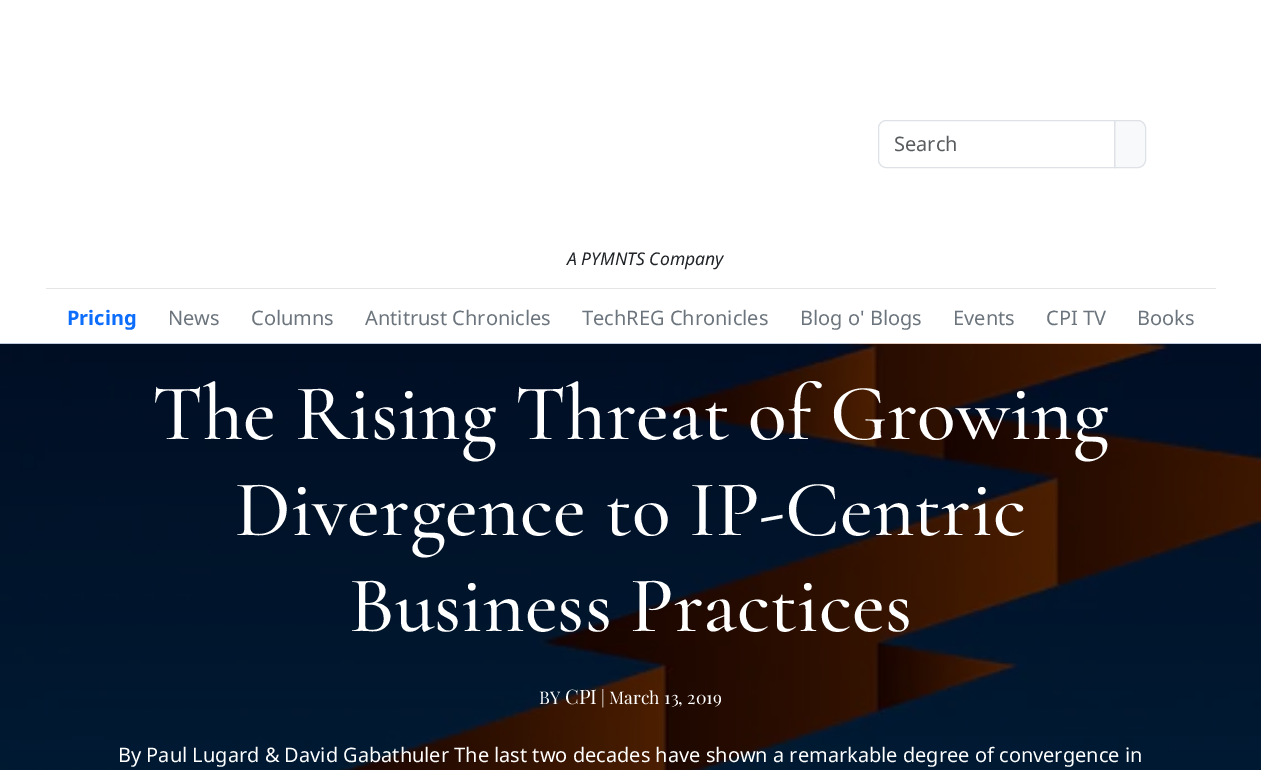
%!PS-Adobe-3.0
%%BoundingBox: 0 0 1261 770
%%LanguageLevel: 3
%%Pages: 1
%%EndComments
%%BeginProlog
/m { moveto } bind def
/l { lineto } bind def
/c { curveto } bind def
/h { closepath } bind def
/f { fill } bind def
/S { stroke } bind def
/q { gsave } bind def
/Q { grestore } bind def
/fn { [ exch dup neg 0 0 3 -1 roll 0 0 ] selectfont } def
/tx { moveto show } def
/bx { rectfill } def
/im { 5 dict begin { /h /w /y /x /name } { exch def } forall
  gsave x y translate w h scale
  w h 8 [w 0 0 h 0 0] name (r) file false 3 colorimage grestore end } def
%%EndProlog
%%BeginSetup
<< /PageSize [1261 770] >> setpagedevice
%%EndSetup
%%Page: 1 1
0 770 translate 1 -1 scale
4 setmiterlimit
1 setgray
0 0 1261 770 bx
0.898 setgray
46 288 1170 1 bx
0.973 0.976 0.98 setrgbcolor
1114.5 120.5 m 1138 120.5 l 1142 120.5 1145.5 124 1145.5 128 c 1145.5 160 l 1145.5 164 1142 167.5 1138 167.5 c 1114.5 167.5 l h q f Q
0.871 0.886 0.902 setrgbcolor
S
886 120.5 m 1114.5 120.5 l 1114.5 167.5 l 886 167.5 l 882 167.5 878.5 164 878.5 160 c 878.5 128 l 878.5 124 882 120.5 886 120.5 c h S
/NotoSans-Regular 20 fn
0.349 0.361 0.373 setrgbcolor
(Search) 894 151 tx
/NotoSans-Italic 17.5 fn
0.129 0.145 0.161 setrgbcolor
(A PYMNTS Company) 567 265 tx
/NotoSans-Bold 20 fn
0.051 0.431 0.992 setrgbcolor
(Pricing) 67 325 tx
/NotoSans-Regular 20 fn
0.424 0.459 0.49 setrgbcolor
(News) 168 325 tx
(Columns) 251 325 tx
(Antitrust Chronicles) 365 325 tx
(TechREG Chronicles) 582 325 tx
(Blog o' Blogs) 800 325 tx
(Events) 953 325 tx
(CPI TV) 1046 325 tx
(Books) 1137 325 tx
(image0.raw) 0 343 1261 427 im
/CormorantGaramond-Medium 80 fn
1 setgray
(The Rising Threat of Growing) 152 439 tx
(Divergence to IP-Centric) 235 535 tx
(Business Practices) 349 631 tx
/PlayfairDisplay-Regular 17.5 fn
(BY) 539 704 tx
/PlayfairDisplay-Regular 20 fn
(CPI) 565 704 tx
/PlayfairDisplay-Regular 17.5 fn
(| March 13, 2019) 601 704 tx
/NotoSans-Regular 20 fn
(By Paul Lugard & David Gabathuler The last two decades have shown a remarkable degree of convergence in) 118 762 tx
showpage
%%EOF
